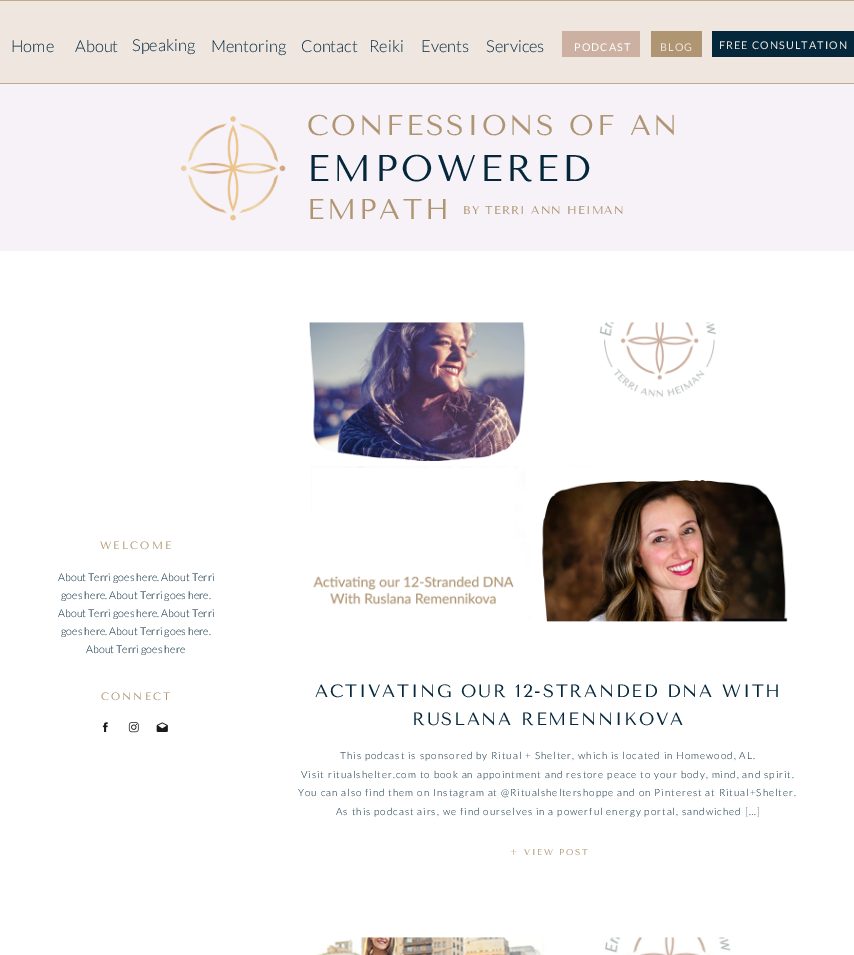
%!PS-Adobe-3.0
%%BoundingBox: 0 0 854 955
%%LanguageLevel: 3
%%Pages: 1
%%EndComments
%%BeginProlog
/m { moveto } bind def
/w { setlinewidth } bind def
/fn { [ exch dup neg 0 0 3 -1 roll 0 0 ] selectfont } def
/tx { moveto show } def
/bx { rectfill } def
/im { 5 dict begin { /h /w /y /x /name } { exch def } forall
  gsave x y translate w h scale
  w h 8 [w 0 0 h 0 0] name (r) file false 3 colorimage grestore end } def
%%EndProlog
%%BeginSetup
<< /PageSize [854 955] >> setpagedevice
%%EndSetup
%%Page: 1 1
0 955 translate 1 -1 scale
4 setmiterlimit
1 setgray
0 0 854 955 bx
0.937 0.902 0.875 setrgbcolor
0 0 854 84 bx
0.686 0.584 0.447 setrgbcolor
0.7 w
-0.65 0.35 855.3 83.3 rectstroke
/Lato-Light 16.5 fn
0.016 0.153 0.231 setrgbcolor
(Home) 11 52 tx
(About) 75 52 tx
(Speaking) 132 51 tx
(Mentoring) 211 52 tx
(Contact) 301 52 tx
(Reiki) 369 52 tx
(Events) 421 52 tx
(Services) 486 52 tx
0.8 0.69 0.635 setrgbcolor
562 31 78 26 bx
0.686 0.584 0.447 setrgbcolor
651 31 51 26 bx
0.016 0.153 0.231 setrgbcolor
712 31 142 26 bx
/Lato-Regular 10.7 fn
1 setgray
574 51 m 1.1 0 (PODCAST) ashow
0.937 0.902 0.875 setrgbcolor
660 51 m 1.1 0 (BLOG) ashow
719 49 m 1.1 0 (FREE CONSULTATION) ashow
0.969 0.949 0.969 setrgbcolor
0 84 854 167 bx
(image0.raw) 181 116 105 105 im
/TenorSans-Regular 28.5 fn
0.686 0.584 0.447 setrgbcolor
307 135 m 2.8 0 (CONFESSIONS OF AN) ashow
/TenorSans-Regular 37 fn
0.016 0.153 0.231 setrgbcolor
307 181 m 3.75 0 (EMPOWERED) ashow
/TenorSans-Regular 28.5 fn
0.686 0.584 0.447 setrgbcolor
307 219 m 2.8 0 (EMPATH) ashow
/TenorSans-Regular 11.4 fn
463 214 m 1.1 0 (BY TERRI ANN HEIMAN) ashow
0.996 0.984 0.973 setrgbcolor
427 251 1 1 bx
/TenorSans-Regular 10.7 fn
0.686 0.584 0.447 setrgbcolor
100 549 m 2 0 (WELCOME) ashow
/Lato-Light 10.7 fn
0.016 0.153 0.231 setrgbcolor
(About Terri goes here. About Terri) 58 581 tx
(goes here. About Terri goes here.) 61 599 tx
(About Terri goes here. About Terri) 58 617 tx
(goes here. About Terri goes here.) 61 635 tx
(About Terri goes here) 86 653 tx
/TenorSans-Regular 10.7 fn
0.686 0.584 0.447 setrgbcolor
101 700 m 2 0 (CONNECT) ashow
(image1.raw) 102 722 6 10 im
(image2.raw) 128 722 11 11 im
(image3.raw) 156 722 12 10 im
(image4.raw) 309 322 479 300 im
/TenorSans-Regular 17.8 fn
0.016 0.153 0.231 setrgbcolor
315 697 m 1.8 0 (ACTIVATING OUR 12-STRANDED DNA WITH) ashow
412 725 m 1.8 0 (RUSLANA REMENNIKOVA) ashow
/Lato-Light 9.95 fn
340 759 m 1 0 (This podcast is sponsored by Ritual + Shelter, which is located in Homewood, AL.) ashow
301 778 m 1 0 (Visit ritualshelter.com to book an appointment and restore peace to your body, mind, and spirit.) ashow
298 796 m 1 0 (You can also find them on Instagram at @Ritualsheltershoppe and on Pinterest at Ritual+Shelter.) ashow
336 815 m 1 0 (As this podcast airs, we find ourselves in a powerful energy portal, sandwiched […]) ashow
/TenorSans-Regular 8.5 fn
0.686 0.584 0.447 setrgbcolor
510 855 m 1.75 0 (+ VIEW POST) ashow
(image5.raw) 316 937 415 18 im
showpage
%%EOF
